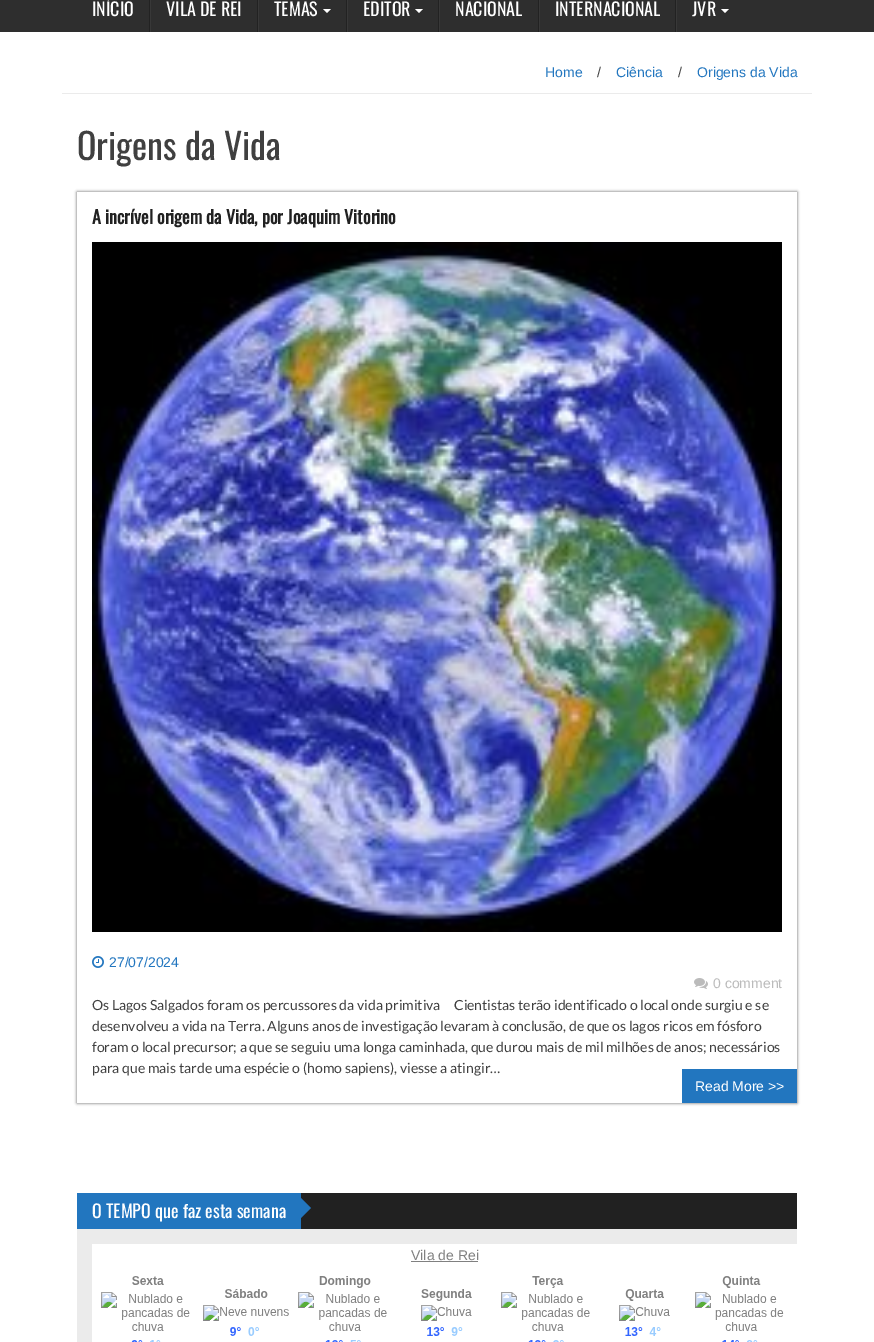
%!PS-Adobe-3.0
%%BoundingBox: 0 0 874 1342
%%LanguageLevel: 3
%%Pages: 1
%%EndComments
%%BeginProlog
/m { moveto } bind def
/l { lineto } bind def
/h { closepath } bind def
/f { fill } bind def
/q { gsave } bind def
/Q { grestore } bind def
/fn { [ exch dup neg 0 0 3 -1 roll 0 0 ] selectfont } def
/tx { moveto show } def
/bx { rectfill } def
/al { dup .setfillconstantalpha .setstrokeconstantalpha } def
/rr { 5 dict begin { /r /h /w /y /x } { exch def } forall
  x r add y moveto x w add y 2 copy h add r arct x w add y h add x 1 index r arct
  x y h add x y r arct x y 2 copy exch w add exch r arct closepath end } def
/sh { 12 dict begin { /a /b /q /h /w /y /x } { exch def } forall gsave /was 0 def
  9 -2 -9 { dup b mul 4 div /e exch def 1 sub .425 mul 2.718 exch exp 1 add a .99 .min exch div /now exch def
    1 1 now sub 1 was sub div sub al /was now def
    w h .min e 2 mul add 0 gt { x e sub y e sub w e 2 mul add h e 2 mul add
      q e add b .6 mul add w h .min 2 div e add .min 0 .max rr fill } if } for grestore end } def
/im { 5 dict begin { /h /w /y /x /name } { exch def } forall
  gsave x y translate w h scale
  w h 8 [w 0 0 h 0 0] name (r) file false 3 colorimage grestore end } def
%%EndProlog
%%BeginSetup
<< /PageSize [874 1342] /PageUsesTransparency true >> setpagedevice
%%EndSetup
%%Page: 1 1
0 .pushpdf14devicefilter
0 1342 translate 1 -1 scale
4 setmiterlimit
1 setgray
0 0 874 1342 bx
0.18 setgray
0 0 874 32 bx
0.133 setgray
149 0 1 32 bx
/Oswald-Regular 18 fn
1 setgray
(INÍCIO) 92 16 tx
0.133 setgray
257 0 1 32 bx
0.22 setgray
150 0 1 32 bx
1 setgray
(VILA DE REI) 166 16 tx
0.133 setgray
346 0 1 32 bx
0.22 setgray
258 0 1 32 bx
1 setgray
(TEMAS) 274 16 tx
323 9 m 331 9 l 327 13 l h f
0.133 setgray
438 0 1 32 bx
0.22 setgray
347 0 1 32 bx
1 setgray
(EDITOR) 363 16 tx
415 9 m 423 9 l 419 13 l h f
0.133 setgray
538 0 1 32 bx
0.22 setgray
439 0 1 32 bx
1 setgray
(NACIONAL) 455 16 tx
0.133 setgray
675 0 1 32 bx
0.22 setgray
539 0 1 32 bx
1 setgray
(INTERNACIONAL) 555 16 tx
0.22 setgray
676 0 1 32 bx
1 setgray
(JVR) 692 16 tx
721 9 m 729 9 l 725 13 l h f
0.922 setgray
62 93 750 1 bx
/LiberationSans-Regular 14 fn
0.133 0.463 0.749 setrgbcolor
(Home) 545 77 tx
0.251 setgray
(/) 597 77 tx
0.133 0.463 0.749 setrgbcolor
(Ciência) 616 77 tx
0.251 setgray
(/) 678 77 tx
0.133 0.463 0.749 setrgbcolor
(Origens da Vida) 697 77 tx
/Oswald-Regular 36 fn
0.251 setgray
(Origens da Vida) 77 160 tx
q
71 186 m 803 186 l 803 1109 l 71 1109 l h 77 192 m 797 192 l 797 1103 l 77 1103 l h eoclip newpath
0.196 setgray
77 192 720 911 0 1.5 0.75 sh
Q
/Oswald-Bold 18 fn
0.129 setgray
(A incrível origem da Vida, por Joaquim Vitorino) 92 224 tx
(image0.raw) 92 242 690 690 im
(image1.raw) 92 956 12 12 im
/LiberationSans-Regular 14 fn
0.133 0.463 0.749 setrgbcolor
(27/07/2024) 109 967 tx
(image2.raw) 694 978 14 11 im
0.733 setgray
(0 comment) 713 988 tx
/Lato-Regular 14 fn
0.251 setgray
(Os Lagos Salgados foram os percussores da vida primitiva     Cientistas terão identificado o local onde surgiu e se) 92 1010 tx
(desenvolveu a vida na Terra. Alguns anos de investigação levaram à conclusão, de que os lagos ricos em fósforo) 92 1031 tx
(foram o local precursor; a que se seguiu uma longa caminhada, que durou mais de mil milhões de anos; necessários) 92 1052 tx
(para que mais tarde uma espécie o \(homo sapiens\), viesse a atingir…) 92 1073 tx
0.133 0.463 0.749 setrgbcolor
682 1069 115 34 bx
/LiberationSans-Regular 14 fn
1 setgray
(Read More >>) 695 1091 tx
0.922 setgray
77 1229 720 113 bx
0.129 setgray
301 1193 496 36 bx
0.133 0.463 0.749 setrgbcolor
77 1193 224 36 bx
/Oswald-Regular 18 fn
1 setgray
(O TEMPO que faz esta semana) 92 1218 tx
0.133 0.463 0.749 setrgbcolor
301 1218 m 301 1198 l 311 1208 l h f
1 setgray
92 1244 705 98 bx
/LiberationSans-Regular 14 fn
0.502 setgray
(Vila de Rei) 411 1260 tx
411 1261 67 1 bx
(image3.raw) 101 1276 683 66 im
.poppdf14devicefilter showpage
%%EOF
